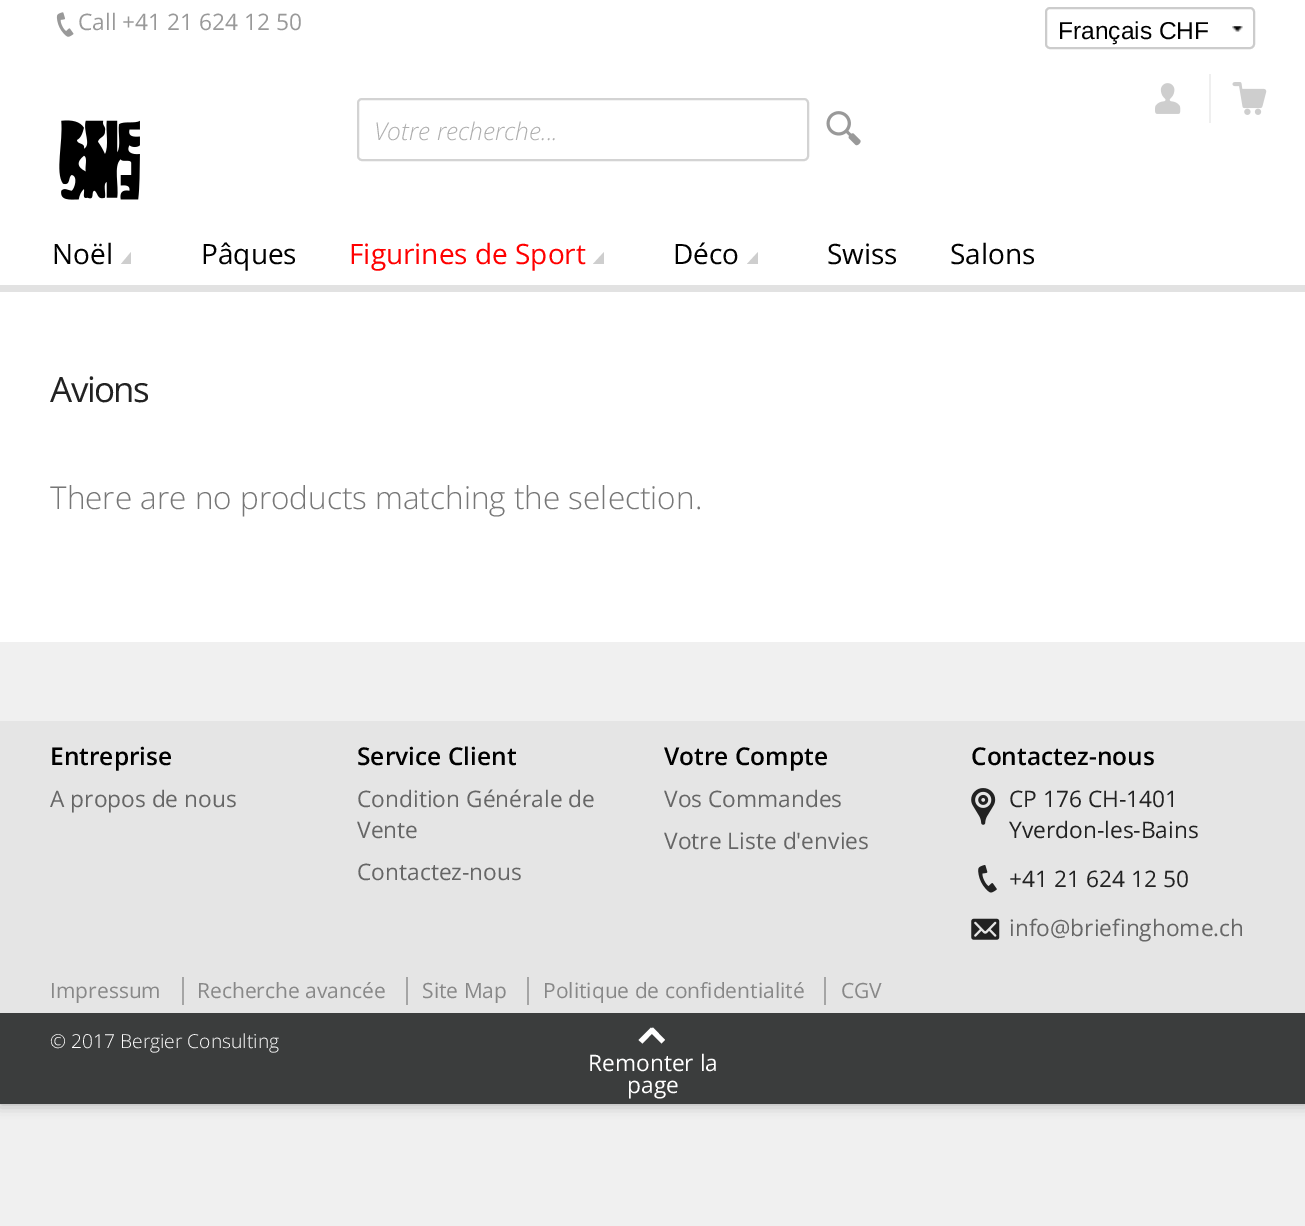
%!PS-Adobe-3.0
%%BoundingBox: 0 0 1305 1226
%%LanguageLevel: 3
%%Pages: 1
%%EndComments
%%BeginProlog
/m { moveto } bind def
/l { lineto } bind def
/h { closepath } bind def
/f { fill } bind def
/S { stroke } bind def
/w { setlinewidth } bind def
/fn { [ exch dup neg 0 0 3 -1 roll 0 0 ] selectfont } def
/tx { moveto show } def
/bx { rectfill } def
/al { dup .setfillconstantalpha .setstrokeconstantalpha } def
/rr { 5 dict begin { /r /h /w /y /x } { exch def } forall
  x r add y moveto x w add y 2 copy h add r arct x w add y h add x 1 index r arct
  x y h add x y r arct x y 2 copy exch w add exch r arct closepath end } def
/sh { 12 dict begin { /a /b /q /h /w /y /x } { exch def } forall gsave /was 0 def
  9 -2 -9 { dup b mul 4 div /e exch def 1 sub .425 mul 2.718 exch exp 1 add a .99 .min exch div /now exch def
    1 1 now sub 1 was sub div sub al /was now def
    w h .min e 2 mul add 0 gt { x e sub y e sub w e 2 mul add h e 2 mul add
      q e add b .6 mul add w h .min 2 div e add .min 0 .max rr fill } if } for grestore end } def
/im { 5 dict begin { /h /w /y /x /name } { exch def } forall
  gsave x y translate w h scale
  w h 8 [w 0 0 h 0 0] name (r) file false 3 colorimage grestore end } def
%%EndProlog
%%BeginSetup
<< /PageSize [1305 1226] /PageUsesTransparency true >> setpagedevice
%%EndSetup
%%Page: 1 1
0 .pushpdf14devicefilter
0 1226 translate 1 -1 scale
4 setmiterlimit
0.941 setgray
0 0 1305 1226 bx
0.196 setgray
0 0 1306 1104 0 7 0.4 sh
1 setgray
0 0 1305 642 bx
0.886 setgray
0 285 1305 7 bx
(image0.raw) 56 12 18 25 im
/OpenSans-Regular 22.75 fn
0.6 setgray
(Call +41 21 624 12 50) 78 30 tx
(image1.raw) 1232 26 11 6 im
0.8 setgray
2 w
1046 8 208 40 4 rr S
/LiberationSans-Regular 24.5 fn
0 setgray
(Français CHF) 1058 39 tx
0.937 setgray
1209 74 2 49 bx
(image2.raw) 1155 83 26 31 im
(image3.raw) 1232 82 35 33 im
(image4.raw) 59 120 81 80 im
0.827 setgray
358 99 450 61 4 rr S
/OpenSans-LightItalic 24.5 fn
0.682 setgray
(Votre recherche...) 374 140 tx
(image5.raw) 826 111 35 35 im
/OpenSans-Regular 28 fn
0 setgray
(Noël) 52 264 tx
0.808 setgray
131 264 m 121 264 l 131 252 l h f
0 setgray
(Pâques) 201 264 tx
1 0 0 setrgbcolor
(Figurines de Sport) 349 264 tx
0.808 setgray
604 264 m 593 264 l 604 252 l h f
0 setgray
(Déco) 673 264 tx
0.808 setgray
758 264 m 747 264 l 758 252 l h f
0 setgray
(Swiss) 827 264 tx
(Salons) 950 264 tx
/OpenSans-Regular 35 fn
0.133 setgray
50 402 m -1.5 0 (Avions) ashow
/OpenSans-Light 31.5 fn
0.467 setgray
(There are no products matching the selection.) 50 509 tx
0.941 setgray
0 642 1305 79 bx
0.898 setgray
0 721 1305 292 bx
/OpenSans-SemiBold 24.5 fn
0 setgray
(Entreprise) 50 765 tx
/OpenSans-Regular 22.75 fn
0.4 setgray
(A propos de nous) 50 807 tx
/OpenSans-SemiBold 24.5 fn
0 setgray
(Service Client) 357 765 tx
/OpenSans-Regular 22.75 fn
0.4 setgray
(Condition Générale de) 357 807 tx
(Vente) 357 838 tx
(Contactez-nous) 357 880 tx
/OpenSans-SemiBold 24.5 fn
0 setgray
(Votre Compte) 664 765 tx
/OpenSans-Regular 22.75 fn
0.4 setgray
(Vos Commandes) 664 807 tx
(Votre Liste d'envies) 664 849 tx
/OpenSans-SemiBold 24.5 fn
0 setgray
(Contactez-nous) 971 765 tx
(image6.raw) 971 788 25 37 im
/OpenSans-Regular 22.75 fn
0.133 setgray
(CP 176 CH-1401) 1009 807 tx
(Yverdon-les-Bains) 1009 838 tx
(image7.raw) 978 865 19 28 im
(+41 21 624 12 50) 1009 887 tx
(image8.raw) 971 918 29 22 im
0.4 setgray
(info@briefinghome.ch) 1009 936 tx
/OpenSans-Regular 21 fn
0.533 setgray
(Impressum) 50 998 tx
0.647 setgray
182 977 2 28 bx
0.533 setgray
(Recherche avancée) 197 998 tx
0.647 setgray
406 977 2 28 bx
0.533 setgray
(Site Map) 422 998 tx
0.647 setgray
527 977 2 28 bx
0.533 setgray
(Politique de confidentialité) 543 998 tx
0.647 setgray
824 977 2 28 bx
0.533 setgray
(CGV) 841 998 tx
0.231 0.239 0.239 setrgbcolor
0 1013 1305 91 bx
/OpenSans-Light 19.25 fn
1 setgray
(© 2017 Bergier Consulting) 50 1048 tx
651 1027.5 m 654.5 1031 l 642.5 1043.5 l 638.5 1040 l h f
665 1040 m 661.5 1043.5 l 649 1031 l 653 1027.5 l h f
/OpenSans-Regular 22.75 fn
(Remonter la) 588 1071 tx
(page) 627 1093 tx
.poppdf14devicefilter showpage
%%EOF
